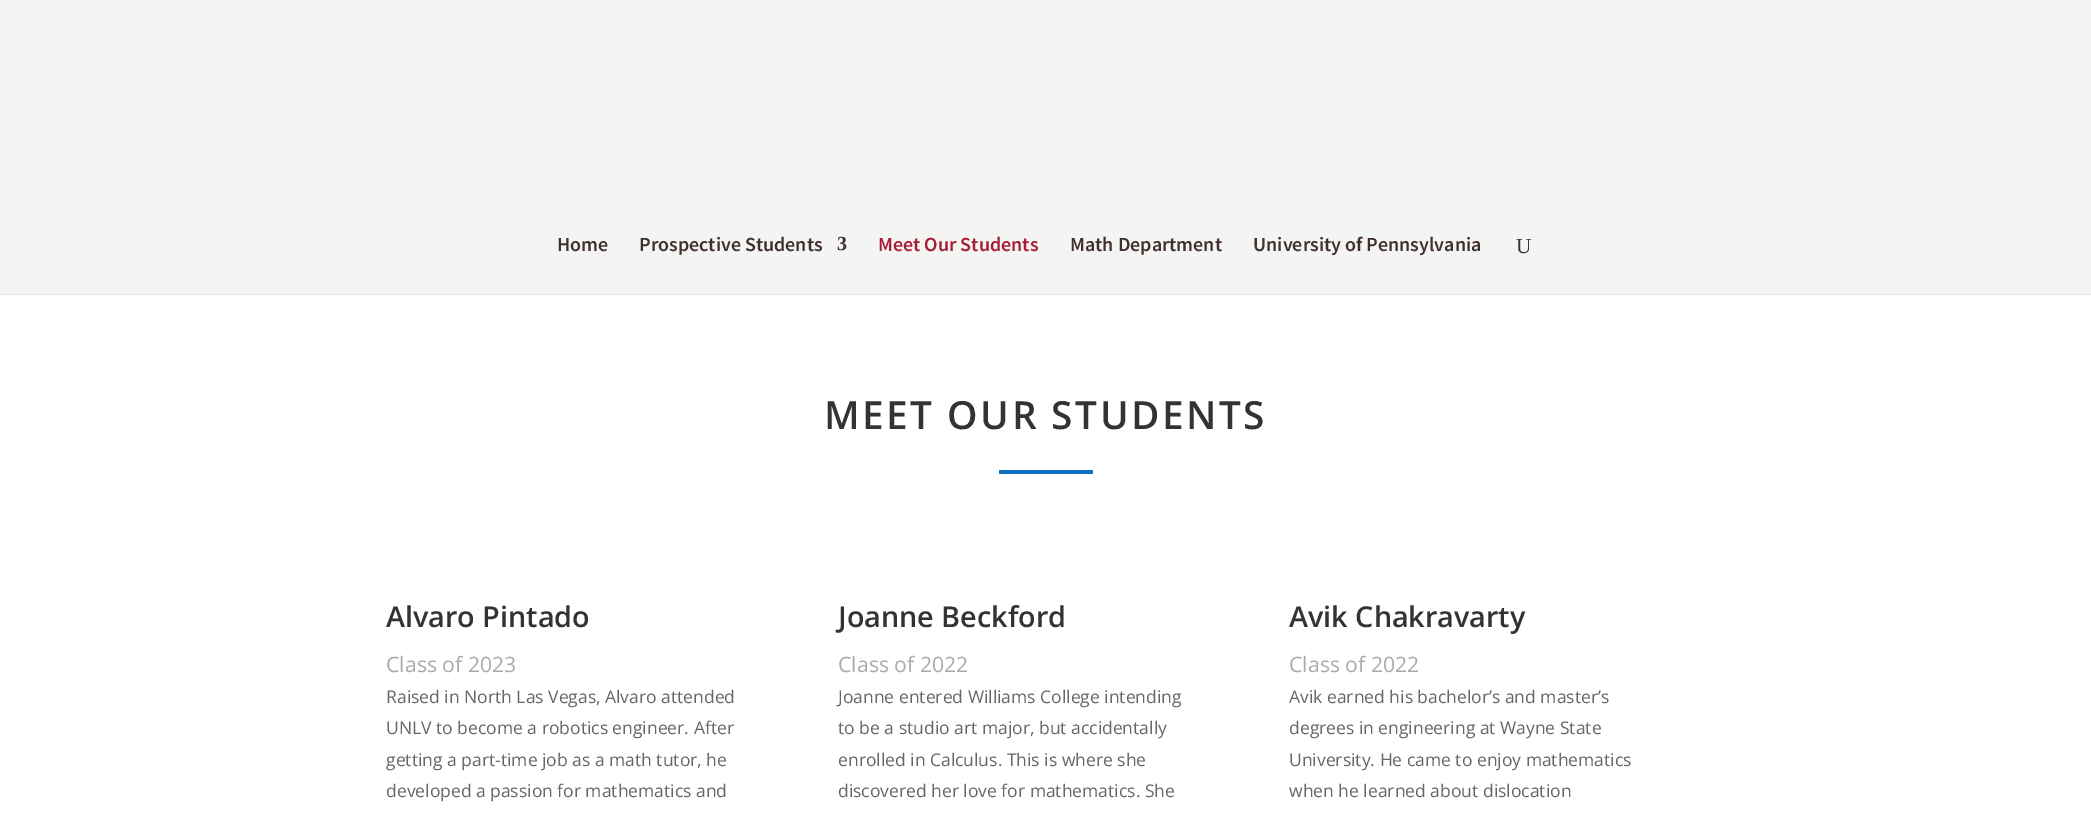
%!PS-Adobe-3.0
%%BoundingBox: 0 0 2091 823
%%LanguageLevel: 3
%%Pages: 1
%%EndComments
%%BeginProlog
/m { moveto } bind def
/fn { [ exch dup neg 0 0 3 -1 roll 0 0 ] selectfont } def
/tx { moveto show } def
/bx { rectfill } def
%%EndProlog
%%BeginSetup
<< /PageSize [2091 823] >> setpagedevice
%%EndSetup
%%Page: 1 1
0 823 translate 1 -1 scale
4 setmiterlimit
1 setgray
0 0 2091 823 bx
0.902 setgray
0 294 2091 1 bx
0.957 0.957 0.949 setrgbcolor
0 0 2091 294 bx
/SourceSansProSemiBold-SemiBold 20 fn
0.247 0.184 0.188 setrgbcolor
(Home) 557 251 tx
(Prospective Students) 639 251 tx
/LiberationSerif-Bold 20 fn
(3) 837 250 tx
/SourceSansProSemiBold-SemiBold 20 fn
0.659 0.114 0.212 setrgbcolor
(Meet Our Students) 878 251 tx
0.247 0.184 0.188 setrgbcolor
(Math Department) 1070 251 tx
(University of Pennsylvania) 1253 251 tx
/LiberationSerif-Regular 21.25 fn
(U) 1516 253 tx
/OpenSans-SemiBold 38.75 fn
0.2 setgray
824 429 m 2.5 0 (MEET OUR STUDENTS) ashow
0.047 0.443 0.765 setrgbcolor
999 470 94 4 bx
/OpenSans-SemiBold 28.75 fn
0.2 setgray
(Alvaro Pintado) 386 627 tx
/OpenSans-Regular 21.25 fn
0.667 setgray
(Class of 2023) 386 672 tx
/OpenSans-Regular 17.5 fn
0.4 setgray
(Raised in North Las Vegas, Alvaro attended) 386 703 tx
(UNLV to become a robotics engineer. After) 386 734 tx
(getting a part-time job as a math tutor, he) 386 766 tx
(developed a passion for mathematics and) 386 797 tx
/OpenSans-SemiBold 28.75 fn
0.2 setgray
(Joanne Beckford) 838 627 tx
/OpenSans-Regular 21.25 fn
0.667 setgray
(Class of 2022) 838 672 tx
/OpenSans-Regular 17.5 fn
0.4 setgray
(Joanne entered Williams College intending) 838 703 tx
(to be a studio art major, but accidentally) 838 734 tx
(enrolled in Calculus. This is where she) 838 766 tx
(discovered her love for mathematics. She) 838 797 tx
/OpenSans-SemiBold 28.75 fn
0.2 setgray
(Avik Chakravarty) 1289 627 tx
/OpenSans-Regular 21.25 fn
0.667 setgray
(Class of 2022) 1289 672 tx
/OpenSans-Regular 17.5 fn
0.4 setgray
(Avik earned his bachelor’s and master’s) 1289 703 tx
(degrees in engineering at Wayne State) 1289 734 tx
(University. He came to enjoy mathematics) 1289 766 tx
(when he learned about dislocation) 1289 797 tx
showpage
%%EOF
